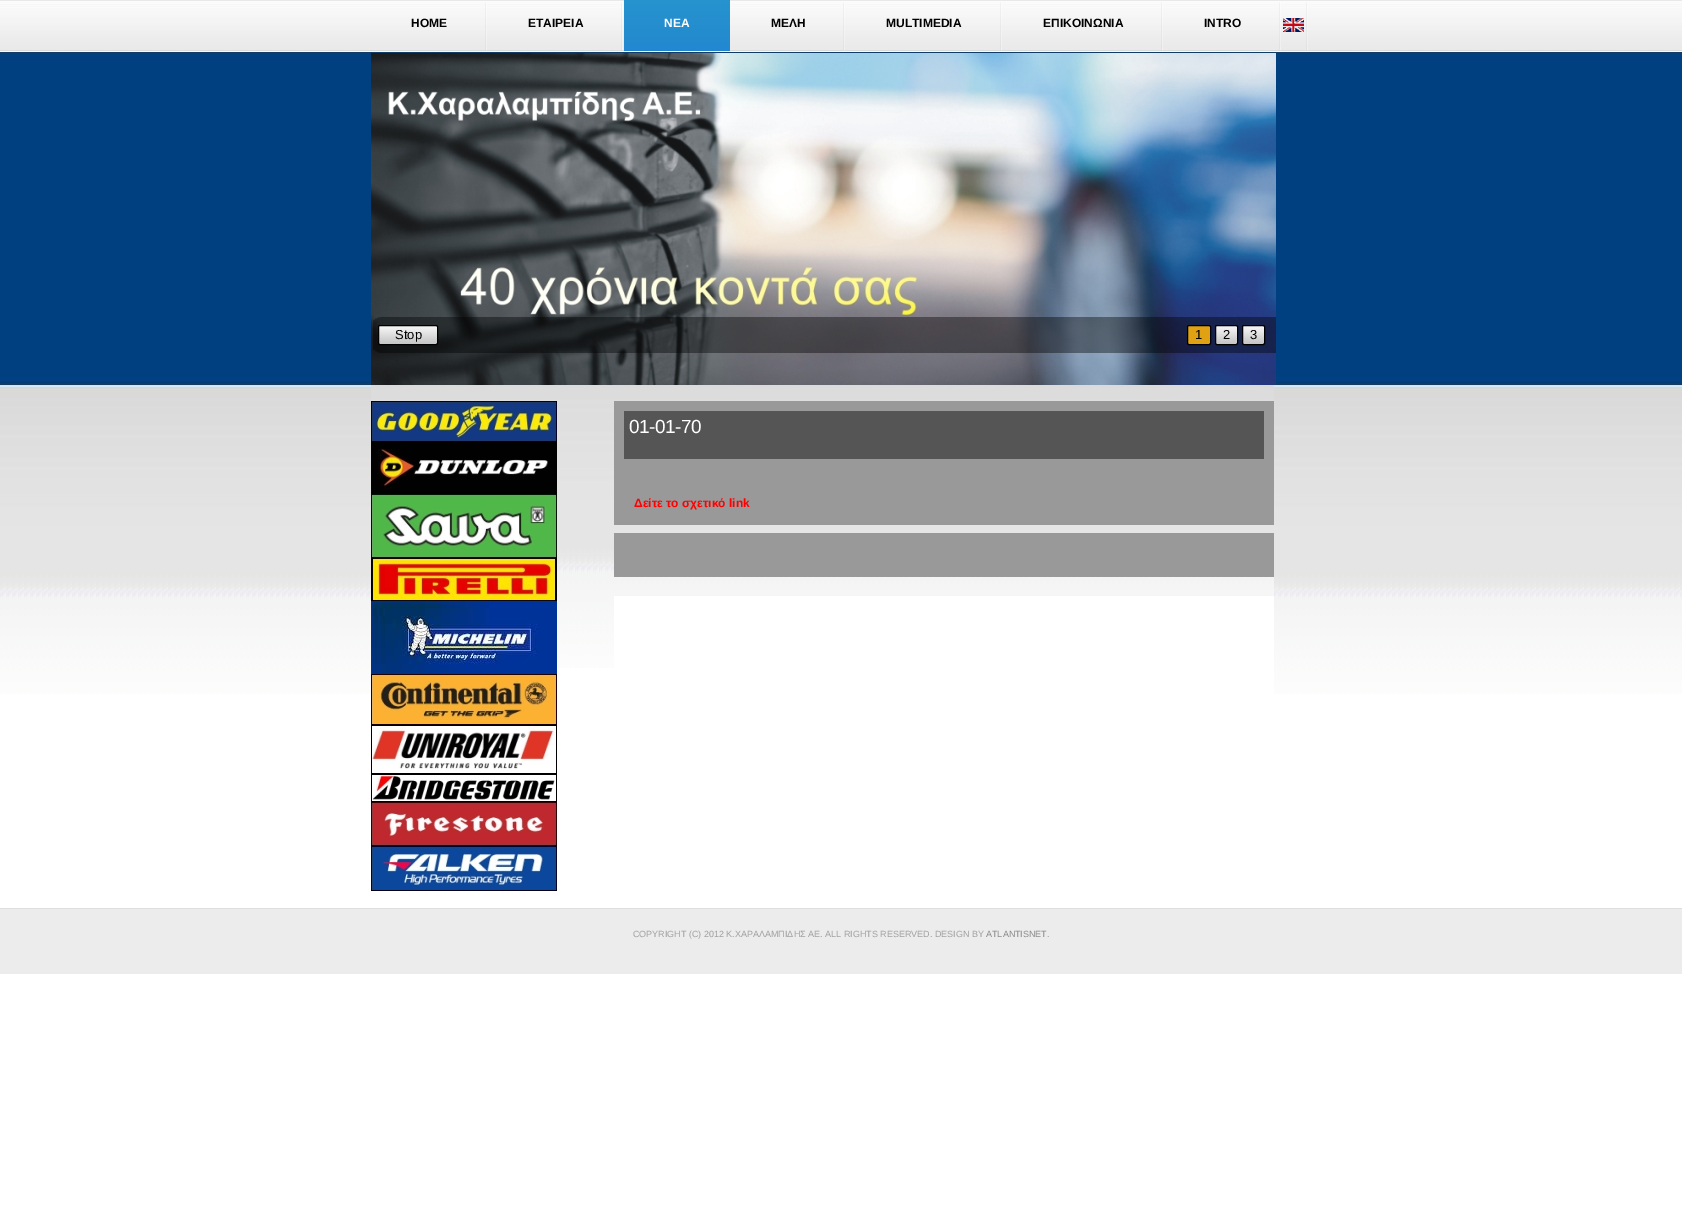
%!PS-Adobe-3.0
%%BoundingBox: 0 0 1682 1216
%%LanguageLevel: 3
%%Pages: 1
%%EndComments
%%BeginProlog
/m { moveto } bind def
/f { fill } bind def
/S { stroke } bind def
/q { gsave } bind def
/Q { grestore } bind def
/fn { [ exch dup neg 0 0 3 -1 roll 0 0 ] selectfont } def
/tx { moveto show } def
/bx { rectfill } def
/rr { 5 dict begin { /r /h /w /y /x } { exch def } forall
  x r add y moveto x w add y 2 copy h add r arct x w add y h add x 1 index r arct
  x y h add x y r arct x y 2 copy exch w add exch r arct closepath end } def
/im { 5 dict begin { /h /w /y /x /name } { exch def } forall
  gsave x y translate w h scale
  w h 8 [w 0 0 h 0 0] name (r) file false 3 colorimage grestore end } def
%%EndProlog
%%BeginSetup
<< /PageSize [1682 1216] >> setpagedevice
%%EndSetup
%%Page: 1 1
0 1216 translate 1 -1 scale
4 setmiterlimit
1 setgray
0 0 1682 1216 bx
(image0.raw) 0 0 1682 694 im
(image1.raw) 485 2 2 49 im
/LiberationSans-Bold 12 fn
0 setgray
(HOME) 411 27 tx
(image1.raw) 621 2 2 49 im
(ΕΤΑΙΡΕΙΑ) 528 27 tx
(image2.raw) 624 0 106 51 im
1 setgray
(ΝΕΑ) 664 27 tx
(image1.raw) 843 2 2 49 im
0 setgray
(ΜΕΛΗ) 771 27 tx
(image1.raw) 1000 2 2 49 im
(MULTIMEDIA) 886 27 tx
(image1.raw) 1161 2 2 49 im
(ΕΠΙΚΟΙΝΩΝΙΑ) 1043 27 tx
(image1.raw) 1279 2 2 49 im
(INTRO) 1204 27 tx
(image1.raw) 1306 2 2 49 im
(image3.raw) 1283 18 21 14 im
(image4.raw) 371 53 905 332 im
(image6.raw) 373 317 903 36 im
(image5.raw) 378 326 60 18 im
378.5 325.5 59 19 1.5 rr S
/LiberationSans-Regular 13 fn
(Stop) 395 339 tx
0.878 0.635 0.075 setrgbcolor
1187.5 325.5 23 19 1.5 rr q f Q
0 setgray
S
(1) 1195 339 tx
(image7.raw) 1215 326 23 18 im
1215.5 325.5 22 19 1.5 rr S
(2) 1223 339 tx
(image7.raw) 1242 326 23 18 im
1242.5 325.5 22 19 1.5 rr S
(3) 1250 339 tx
1 setgray
371 596 903 98 bx
(image8.raw) 371 385 243 283 im
(image9.raw) 371 401 186 41 im
(image10.raw) 371 442 186 52 im
(image11.raw) 371 494 186 64 im
(image12.raw) 371 558 186 43 im
(image13.raw) 371 601 186 73 im
(image14.raw) 371 674 186 51 im
(image15.raw) 371 725 186 49 im
(image16.raw) 371 774 186 28 im
(image17.raw) 371 802 186 44 im
(image18.raw) 371 846 186 45 im
(image19.raw) 614 385 660 211 im
0.6 setgray
614 401 660 124 bx
0.333 setgray
624 411 640 48 bx
/LiberationSans-Regular 19 fn
1 setgray
629 433 m -0.5 0 (01-01-70) ashow
/LiberationSans-Bold 12 fn
1 0 0 setrgbcolor
(Δείτε το σχετικό link) 634 507 tx
0.6 setgray
614 533 660 44 bx
0.925 setgray
0 909 1682 65 bx
0.871 setgray
0 908 1682 1 bx
/LiberationSans-Regular 9 fn
0.627 setgray
(COPYRIGHT \(C\) 2012 K.ΧΑΡΑΛΑΜΠΙΔΗΣ AE. ALL RIGHTS RESERVED. DESIGN BY) 633 937 tx
0.541 setgray
(ATLANTISNET) 986 937 tx
0.627 setgray
(.) 1047 937 tx
showpage
%%EOF
